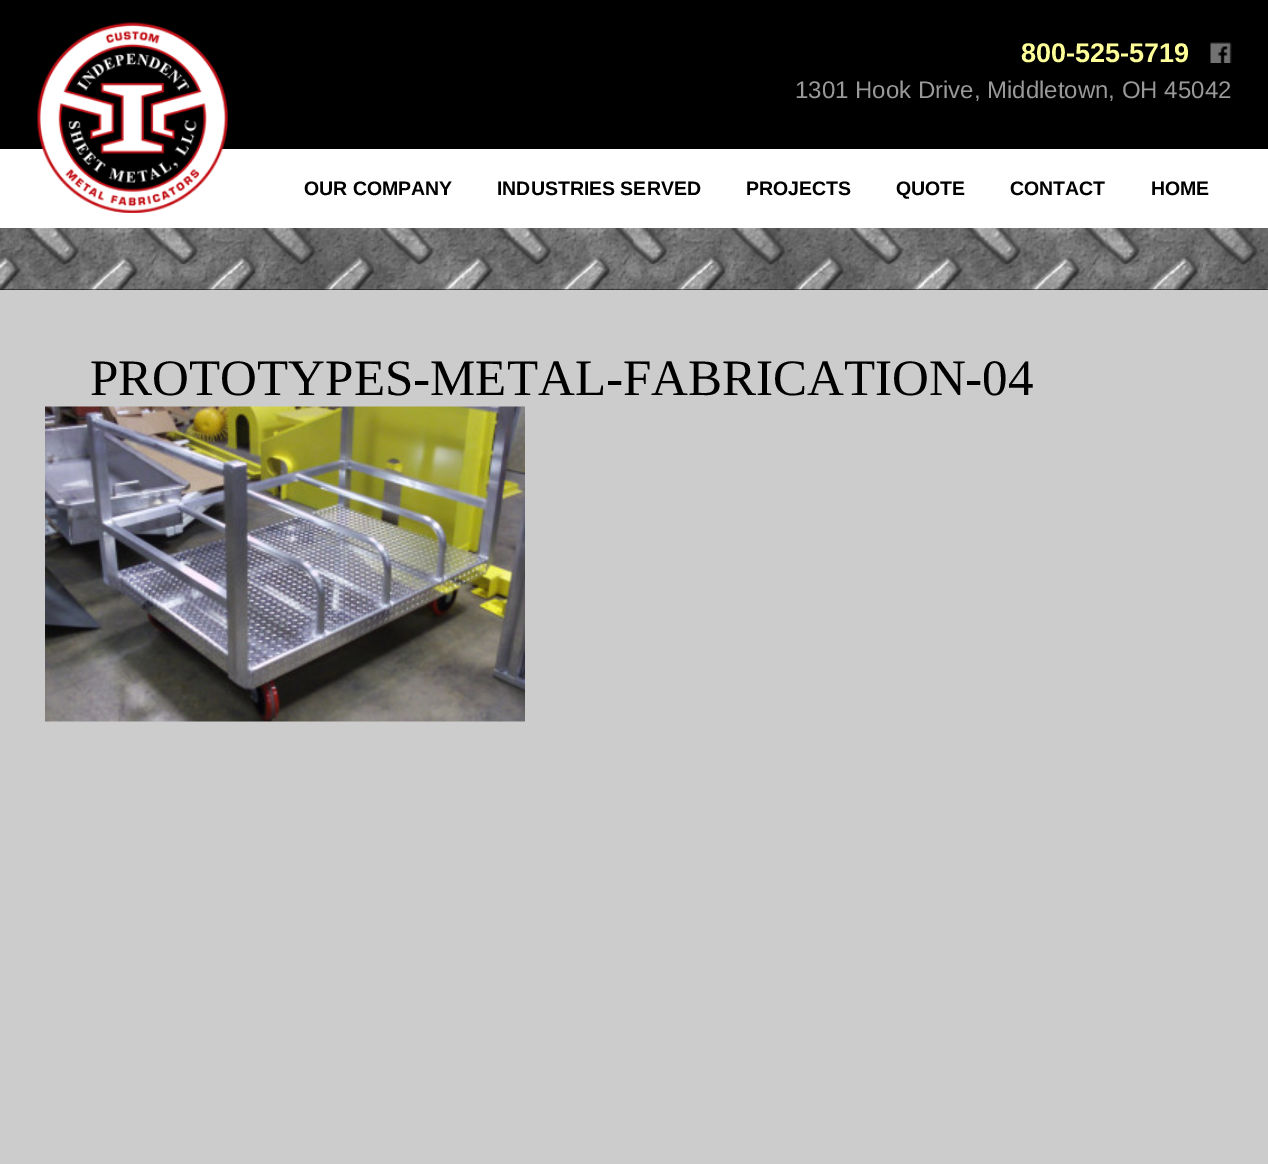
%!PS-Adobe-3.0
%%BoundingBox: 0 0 1268 1164
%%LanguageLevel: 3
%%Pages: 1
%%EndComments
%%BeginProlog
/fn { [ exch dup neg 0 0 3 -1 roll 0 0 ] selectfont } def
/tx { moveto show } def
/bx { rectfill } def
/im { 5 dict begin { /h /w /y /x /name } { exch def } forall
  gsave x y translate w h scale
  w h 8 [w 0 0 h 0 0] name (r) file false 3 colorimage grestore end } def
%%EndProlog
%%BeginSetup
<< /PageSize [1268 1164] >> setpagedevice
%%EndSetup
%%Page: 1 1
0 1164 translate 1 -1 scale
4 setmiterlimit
0.8 setgray
0 0 1268 1164 bx
0 setgray
0 0 1268 290 bx
(image0.raw) 0 228 1268 62 im
1 setgray
0 149 1268 79 bx
(image1.raw) 37 22 191 191 im
/LiberationSans-Bold 27 fn
1 1 0.6 setrgbcolor
(800-525-5719) 1021 62 tx
(image2.raw) 1210 42 22 21 im
/LiberationSans-Regular 24 fn
0.6 setgray
(1301 Hook Drive, Middletown, OH 45042) 795 98 tx
/LiberationSans-Bold 19.5 fn
0 setgray
(OUR COMPANY) 304 195 tx
(INDUSTRIES SERVED) 497 195 tx
(PROJECTS) 746 195 tx
(QUOTE) 896 195 tx
(CONTACT) 1010 195 tx
(HOME) 1151 195 tx
/LiberationSerif-Regular 51 fn
(PROTOTYPES-METAL-FABRICATION-04) 90 395 tx
(image3.raw) 45 406 480 316 im
showpage
%%EOF
